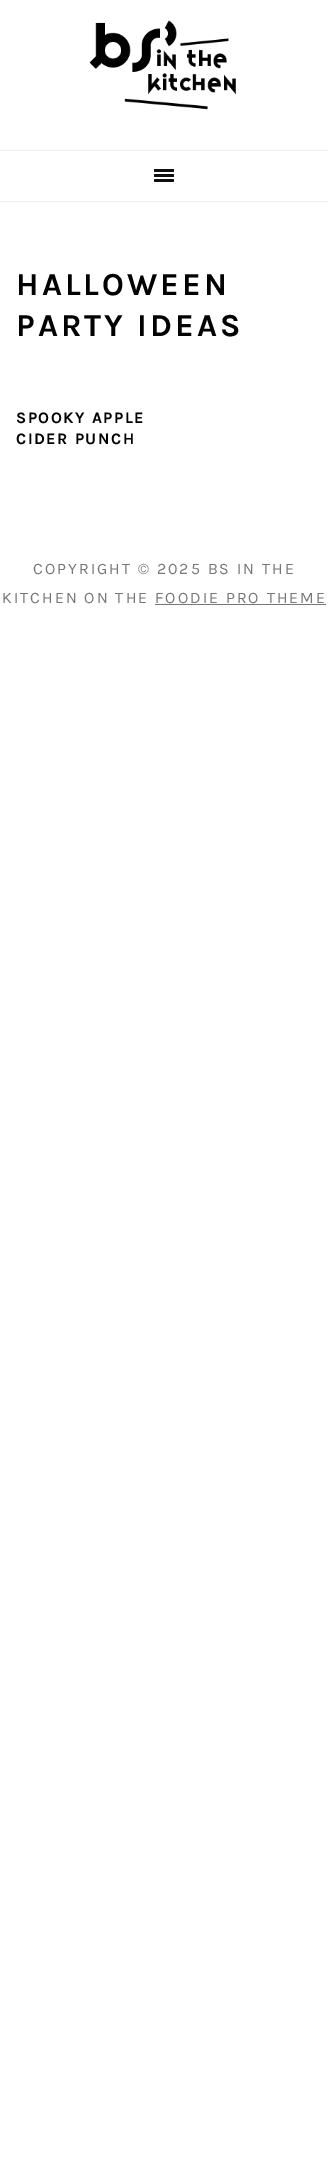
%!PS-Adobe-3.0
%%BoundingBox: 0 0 328 2174
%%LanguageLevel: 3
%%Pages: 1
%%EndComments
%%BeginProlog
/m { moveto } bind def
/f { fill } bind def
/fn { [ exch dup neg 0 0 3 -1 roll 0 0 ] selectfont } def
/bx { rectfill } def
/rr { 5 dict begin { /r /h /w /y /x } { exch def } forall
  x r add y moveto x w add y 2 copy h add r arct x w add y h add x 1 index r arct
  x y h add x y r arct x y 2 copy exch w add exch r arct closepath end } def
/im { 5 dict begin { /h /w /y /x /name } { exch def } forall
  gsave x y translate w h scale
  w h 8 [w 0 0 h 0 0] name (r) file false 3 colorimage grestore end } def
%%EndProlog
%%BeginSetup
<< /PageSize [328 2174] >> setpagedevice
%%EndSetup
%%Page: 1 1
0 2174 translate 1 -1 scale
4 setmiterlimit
1 setgray
0 0 328 2174 bx
(image0.raw) 89 20 147 90 im
0.933 setgray
0 150 328 1 bx
0 201 328 1 bx
0.063 setgray
154 174 20 3 1 rr f
154 169 20 3 1 rr f
154 179 20 3 1 rr f
/Karla-Bold 32 fn
0.004 setgray
16 295 m 3 0 (HALLOWEEN) ashow
16 336 m 3 0 (PARTY IDEAS) ashow
/Karla-Bold 16 fn
16 423 m 1.5 0 (SPOOKY APPLE) ashow
16 444 m 1.5 0 (CIDER PUNCH) ashow
/Karla-Regular 16 fn
0.467 setgray
33 574 m 2 0 (COPYRIGHT © 2025 BS IN THE) ashow
2 603 m 2 0 (KITCHEN ON THE FOODIE PRO THEME) ashow
155 604 171 1 bx
showpage
%%EOF
